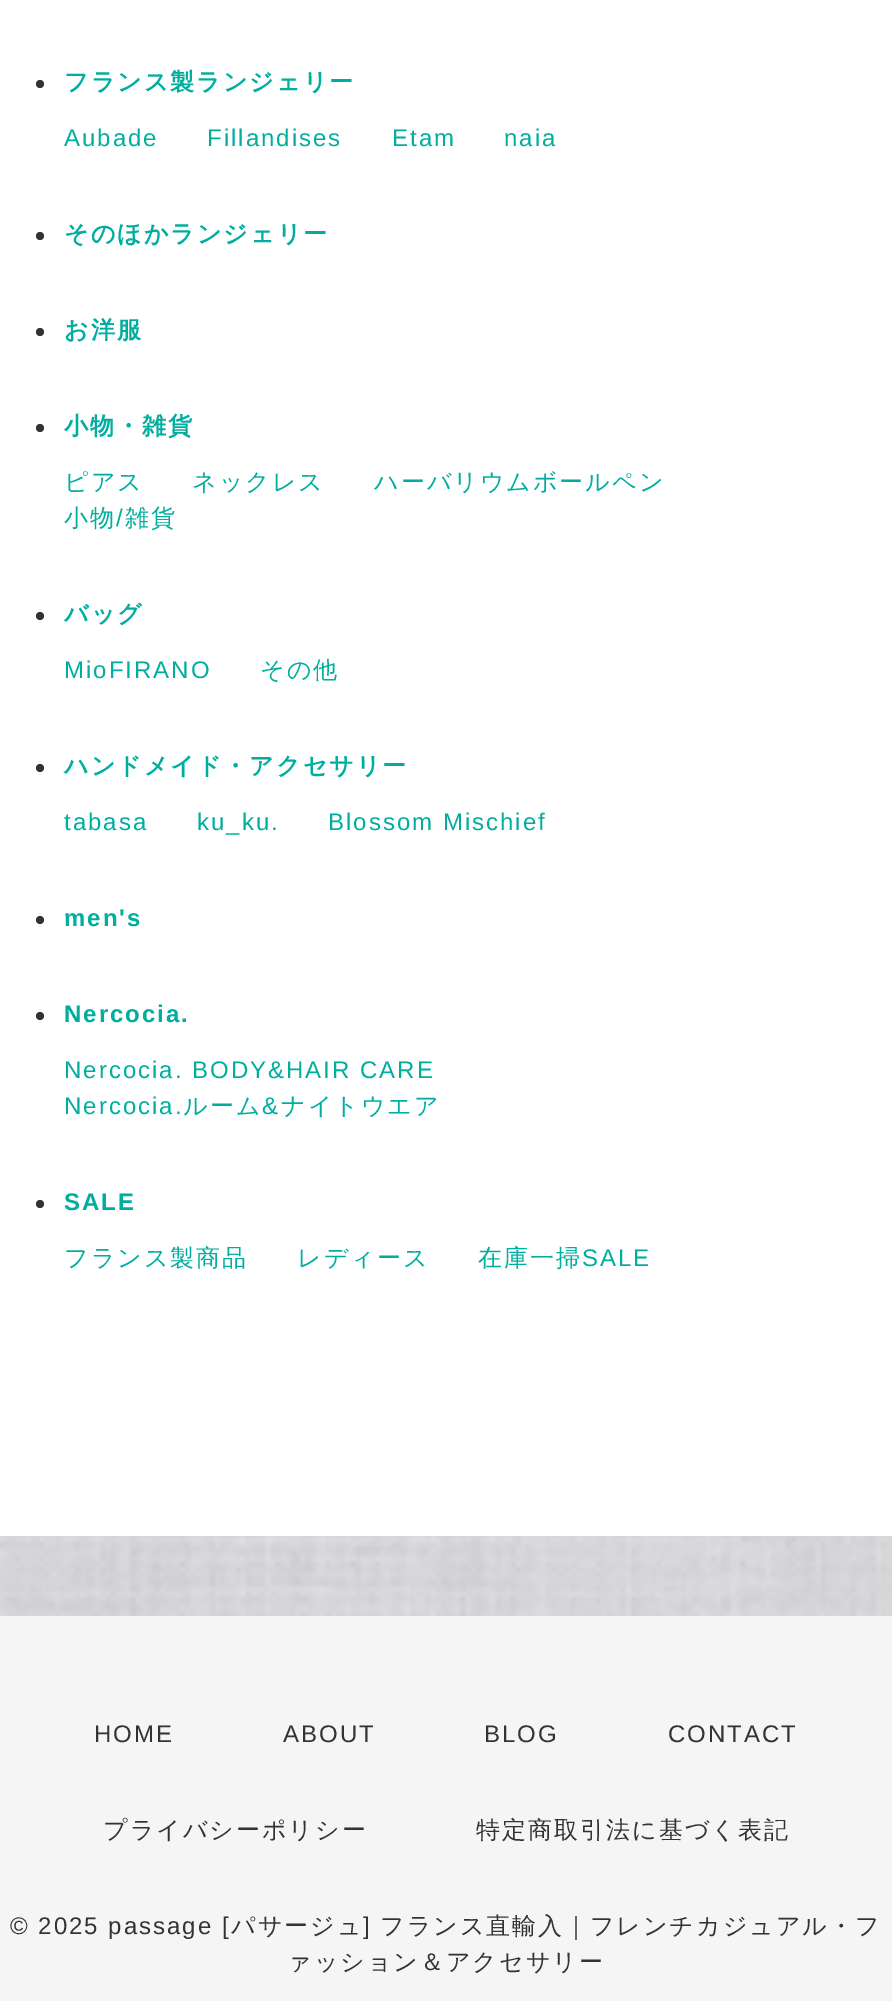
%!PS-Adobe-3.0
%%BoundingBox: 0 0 892 2001
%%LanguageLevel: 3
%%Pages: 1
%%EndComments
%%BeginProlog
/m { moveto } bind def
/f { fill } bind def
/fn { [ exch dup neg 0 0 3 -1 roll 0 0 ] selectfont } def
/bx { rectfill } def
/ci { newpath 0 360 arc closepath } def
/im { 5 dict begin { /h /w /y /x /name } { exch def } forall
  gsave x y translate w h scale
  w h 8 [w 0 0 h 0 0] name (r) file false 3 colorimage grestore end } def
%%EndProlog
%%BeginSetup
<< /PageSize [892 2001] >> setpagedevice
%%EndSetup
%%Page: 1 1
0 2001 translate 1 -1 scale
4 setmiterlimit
1 setgray
0 0 892 2001 bx
(image0.raw) 0 1536 892 80 im
0.2 setgray
40 84 4 ci f
/WenQuanYiZenHei-Bold 24 fn
0 0.682 0.624 setrgbcolor
64 90 m 2 0 (フランス製ランジェリー) ashow
/LiberationSans-Regular 24 fn
64 146 m 2 0 (Aubade) ashow
207 146 m 2 0 (Fillandises) ashow
392 146 m 2 0 (Etam) ashow
504 146 m 2 0 (naia) ashow
0.2 setgray
40 236 4 ci f
/WenQuanYiZenHei-Bold 24 fn
0 0.682 0.624 setrgbcolor
64 242 m 2 0 (そのほかランジェリー) ashow
0.2 setgray
40 332 4 ci f
0 0.682 0.624 setrgbcolor
64 338 m 2 0 (お洋服) ashow
0.2 setgray
40 428 4 ci f
0 0.682 0.624 setrgbcolor
64 434 m 2 0 (小物・雑貨) ashow
/WenQuanYiZenHei-Medium 24 fn
64 490 m 2 0 (ピアス) ashow
192 490 m 2 0 (ネックレス) ashow
374 490 m 2 0 (ハーバリウムボールペン) ashow
64 526 m 2 0 (小物) ashow
/LiberationSans-Regular 24 fn
116 526 m 2 0 (/) ashow
/WenQuanYiZenHei-Medium 24 fn
125 526 m 2 0 (雑貨) ashow
0.2 setgray
40 616 4 ci f
/WenQuanYiZenHei-Bold 24 fn
0 0.682 0.624 setrgbcolor
64 622 m 2 0 (バッグ) ashow
/LiberationSans-Regular 24 fn
64 678 m 2 0 (MioFIRANO) ashow
/WenQuanYiZenHei-Medium 24 fn
260 678 m 2 0 (その他) ashow
0.2 setgray
40 768 4 ci f
/WenQuanYiZenHei-Bold 24 fn
0 0.682 0.624 setrgbcolor
64 774 m 2 0 (ハンドメイド・アクセサリー) ashow
/LiberationSans-Regular 24 fn
64 830 m 2 0 (tabasa) ashow
197 830 m 2 0 (ku_ku.) ashow
328 830 m 2 0 (Blossom Mischief) ashow
0.2 setgray
40 920 4 ci f
/LiberationSans-Bold 24 fn
0 0.682 0.624 setrgbcolor
64 926 m 2 0 (men's) ashow
0.2 setgray
40 1016 4 ci f
0 0.682 0.624 setrgbcolor
64 1022 m 2 0 (Nercocia.) ashow
/LiberationSans-Regular 24 fn
64 1078 m 2 0 (Nercocia. BODY&HAIR CARE) ashow
64 1114 m 2 0 (Nercocia.) ashow
/WenQuanYiZenHei-Medium 24 fn
183 1114 m 2 0 (ルーム) ashow
/LiberationSans-Regular 24 fn
262 1114 m 2 0 (&) ashow
/WenQuanYiZenHei-Medium 24 fn
281 1114 m 2 0 (ナイトウエア) ashow
0.2 setgray
40 1204 4 ci f
/LiberationSans-Bold 24 fn
0 0.682 0.624 setrgbcolor
64 1210 m 2 0 (SALE) ashow
/WenQuanYiZenHei-Medium 24 fn
64 1266 m 2 0 (フランス製商品) ashow
297 1266 m 2 0 (レディース) ashow
478 1266 m 2 0 (在庫一掃) ashow
/LiberationSans-Regular 24 fn
582 1266 m 2 0 (SALE) ashow
0.961 setgray
0 1616 892 385 bx
0.2 setgray
94 1742 m 2 0 (HOME) ashow
283 1742 m 2 0 (ABOUT) ashow
484 1742 m 2 0 (BLOG) ashow
668 1742 m 2 0 (CONTACT) ashow
/WenQuanYiZenHei-Medium 24 fn
103 1838 m 2 0 (プライバシーポリシー) ashow
476 1838 m 2 0 (特定商取引法に基づく表記) ashow
/LiberationSans-Regular 24 fn
10 1934 m 2 0 (© 2025 passage [) ashow
/WenQuanYiZenHei-Medium 24 fn
231 1934 m 2 0 (パサージュ) ashow
/LiberationSans-Regular 24 fn
363 1934 m 2 0 (]) ashow
/WenQuanYiZenHei-Medium 24 fn
380 1934 m 2 0 (フランス直輸入｜フレンチカジュアル・フ) ashow
287 1970 m 2 0 (ァッション＆アクセサリー) ashow
showpage
%%EOF
